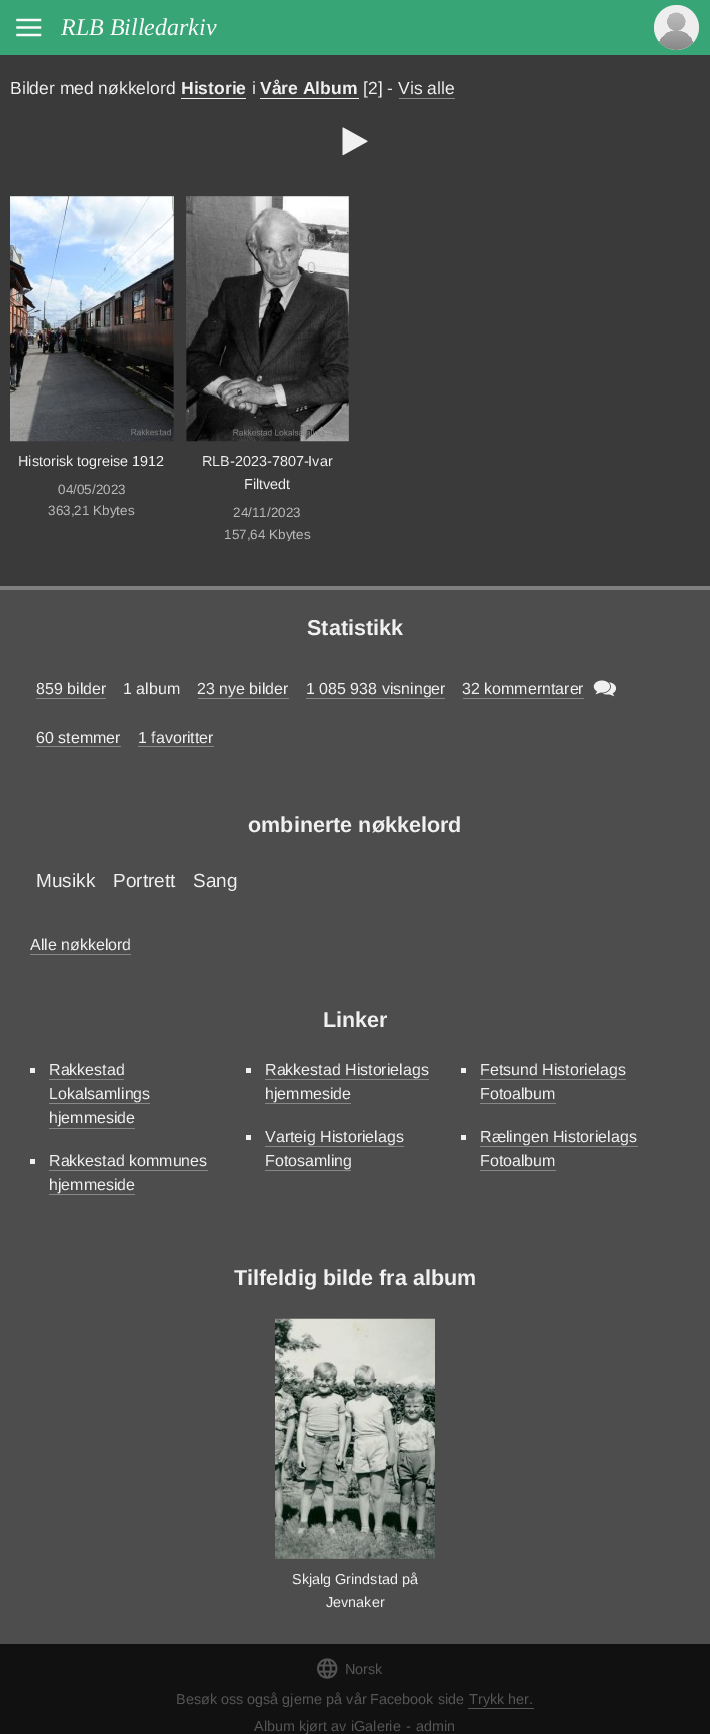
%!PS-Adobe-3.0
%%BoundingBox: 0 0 710 1734
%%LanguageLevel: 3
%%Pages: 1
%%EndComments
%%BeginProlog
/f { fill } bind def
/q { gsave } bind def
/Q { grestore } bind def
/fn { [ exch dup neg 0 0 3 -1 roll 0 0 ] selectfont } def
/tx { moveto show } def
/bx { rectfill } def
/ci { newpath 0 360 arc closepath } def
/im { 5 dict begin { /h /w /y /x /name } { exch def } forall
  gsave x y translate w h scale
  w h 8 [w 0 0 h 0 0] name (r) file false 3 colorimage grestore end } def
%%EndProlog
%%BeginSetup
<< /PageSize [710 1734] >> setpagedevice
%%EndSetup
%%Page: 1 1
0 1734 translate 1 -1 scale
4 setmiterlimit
0.067 setgray
0 0 710 1734 bx
0.227 setgray
0 55 710 531 bx
0.216 0.647 0.459 setrgbcolor
0 0 710 55 bx
(image0.raw) 16 18 26 19 im
/LiberationSerif-Italic 24 fn
0.98 setgray
(RLB Billedarkiv) 61 35 tx
0.933 setgray
676.5 27.5 22.5 ci f
(image1.raw) 659 12 34 38 im
/LiberationSans-Regular 17.5 fn
0.941 setgray
(Bilder med nøkkelord) 10 94 tx
/LiberationSans-Bold 17.5 fn
(Historie) 181 94 tx
181 98 65 1 bx
/LiberationSans-Regular 17.5 fn
(i) 252 94 tx
/LiberationSans-Bold 17.5 fn
(Våre Album) 260 94 tx
260 98 99 1 bx
/LiberationSans-Regular 17.5 fn
([2] - Vis alle) 363 94 tx
0.533 setgray
399 98 56 1 bx
(image2.raw) 342 127 26 29 im
0.333 setgray
10 196 164 245 bx
(image3.raw) 10 196 164 246 im
/LiberationSans-Regular 16 fn
0.286 0.322 0.341 setrgbcolor
(0) 132 302 tx
/LiberationSans-Regular 14.4 fn
0.941 setgray
(Historisk togreise 1912) 18 466 tx
/LiberationSans-Regular 13.5 fn
0.733 setgray
(04/05/2023) 58 494 tx
(363,21 Kbytes) 48 515 tx
0.333 setgray
186 196 163 245 bx
(image4.raw) 186 196 163 246 im
/LiberationSans-Regular 16 fn
0.447 setgray
(0) 307 244 tx
0.773 setgray
(0) 307 273 tx
/LiberationSans-Regular 14.4 fn
0.941 setgray
(RLB-2023-7807-Ivar) 202 466 tx
(Filtvedt) 244 489 tx
/LiberationSans-Regular 13.5 fn
0.733 setgray
(24/11/2023) 233 517 tx
q
186 526 163 15 rectclip
(157,64 Kbytes) 224 539 tx
Q
0.302 setgray
0 590 710 1054 bx
0.502 setgray
0 586 710 4 bx
/LiberationSans-Bold 21.6 fn
0.941 setgray
(Statistikk) 307 635 tx
/LiberationSans-Regular 16 fn
(859 bilder) 36 694 tx
0.533 setgray
36 698 70 1 bx
0.941 setgray
(1 album) 123 694 tx
(23 nye bilder) 197 694 tx
0.533 setgray
198 698 91 1 bx
0.941 setgray
(1 085 938 visninger) 306 694 tx
0.533 setgray
306 698 139 1 bx
0.941 setgray
(32 kommerntarer) 462 694 tx
0.533 setgray
463 698 121 1 bx
(image5.raw) 593 680 24 17 im
0.941 setgray
(60 stemmer) 36 743 tx
0.533 setgray
36 746 85 1 bx
0.941 setgray
(1 favoritter) 138 743 tx
0.533 setgray
138 746 76 1 bx
/LiberationSans-Bold 21.6 fn
0.941 setgray
(ombinerte nøkkelord) 248 832 tx
/LiberationSans-Regular 19 fn
(Musikk) 36 887 tx
(Portrett) 113 887 tx
(Sang) 193 887 tx
0.533 setgray
30 954 101 1 bx
/LiberationSans-Regular 16 fn
0.941 setgray
(Alle nøkkelord) 30 950 tx
/LiberationSans-Bold 21.6 fn
(Linker) 323 1027 tx
30 1068 5 5 bx
/LiberationSans-Regular 16 fn
(Rakkestad) 49 1075 tx
0.533 setgray
49 1079 75 1 bx
0.941 setgray
(Lokalsamlings) 49 1099 tx
0.533 setgray
49 1103 101 1 bx
0.941 setgray
(hjemmeside) 49 1123 tx
0.533 setgray
49 1128 86 1 bx
0.941 setgray
246 1068 5 5 bx
(Rakkestad Historielags) 265 1075 tx
0.533 setgray
265 1079 164 1 bx
0.941 setgray
(hjemmeside) 265 1099 tx
0.533 setgray
265 1103 86 1 bx
0.941 setgray
461 1068 5 5 bx
(Fetsund Historielags) 480 1075 tx
0.533 setgray
480 1079 146 1 bx
0.941 setgray
(Fotoalbum) 480 1099 tx
0.533 setgray
480 1103 76 1 bx
0.941 setgray
246 1135 5 5 bx
(Varteig Historielags) 265 1142 tx
0.533 setgray
265 1146 139 1 bx
0.941 setgray
(Fotosamling) 265 1166 tx
0.533 setgray
265 1170 86 1 bx
0.941 setgray
461 1135 5 5 bx
(Rælingen Historielags) 480 1142 tx
0.533 setgray
480 1146 158 1 bx
0.941 setgray
(Fotoalbum) 480 1166 tx
0.533 setgray
480 1170 76 1 bx
0.941 setgray
30 1159 5 5 bx
(Rakkestad kommunes) 49 1166 tx
0.533 setgray
49 1170 159 1 bx
0.941 setgray
(hjemmeside) 49 1190 tx
0.533 setgray
49 1194 86 1 bx
/LiberationSans-Bold 21.6 fn
0.941 setgray
(Tilfeldig bilde fra album) 234 1285 tx
(image6.raw) 275 1318 160 241 im
/LiberationSans-Regular 16 fn
0.447 setgray
(0) 394 1395 tx
0.365 0.408 0.376 setrgbcolor
(0) 394 1424 tx
/LiberationSans-Regular 14.4 fn
0.941 setgray
(Skjalg Grindstad på) 292 1584 tx
(Jevnaker) 326 1607 tx
(image7.raw) 317 1658 21 21 im
0.333 setgray
(Norsk) 345 1674 tx
(Besøk oss også gjerne på vår Facebook side) 176 1704 tx
(Trykk her.) 469 1704 tx
468 1708 66 1 bx
(Album kjørt av) 254 1731 tx
(iGalerie) 351 1731 tx
(-) 406 1731 tx
(admin) 416 1731 tx
showpage
%%EOF
